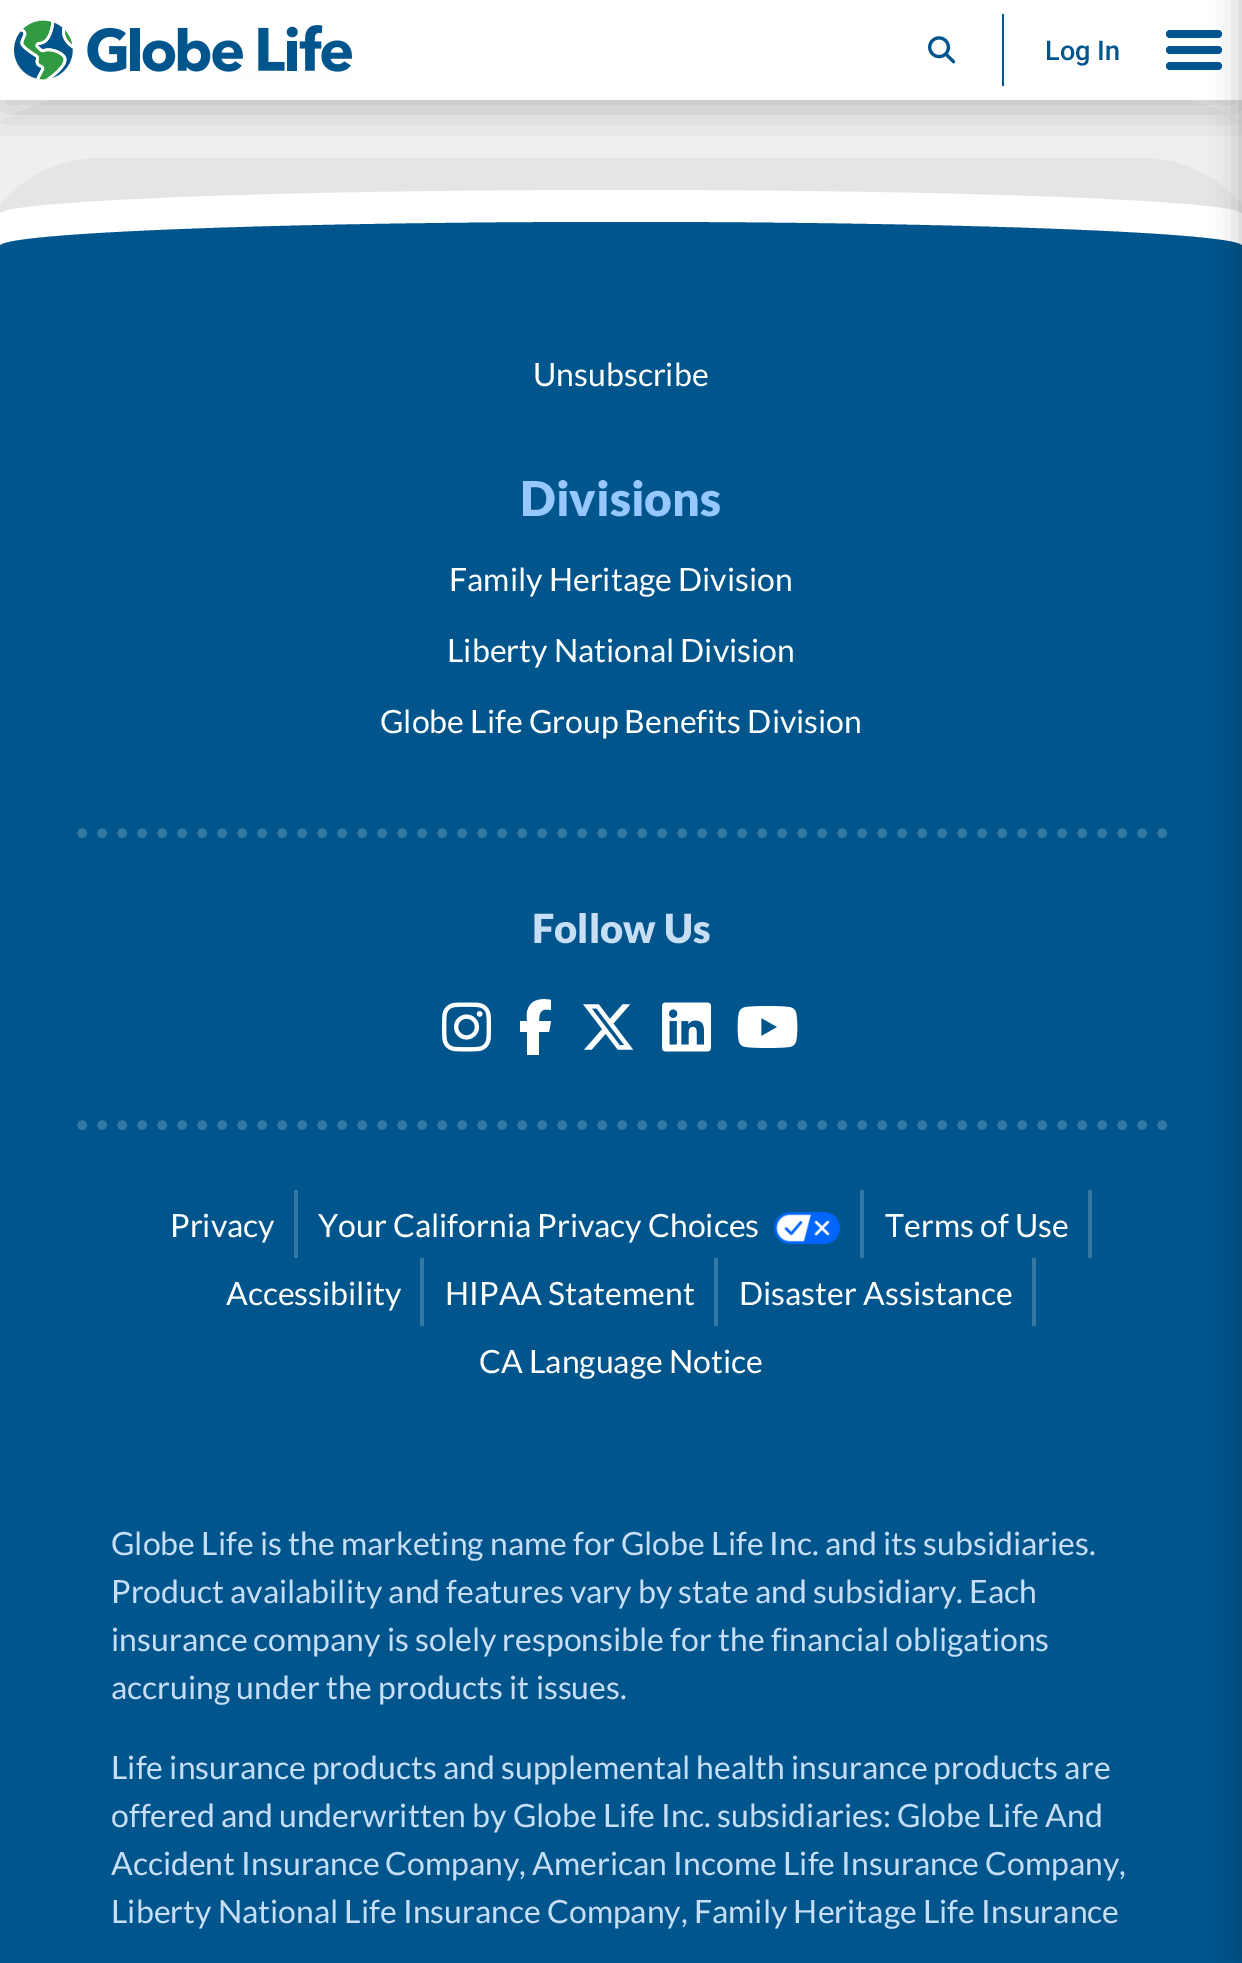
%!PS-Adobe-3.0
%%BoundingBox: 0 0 1242 1963
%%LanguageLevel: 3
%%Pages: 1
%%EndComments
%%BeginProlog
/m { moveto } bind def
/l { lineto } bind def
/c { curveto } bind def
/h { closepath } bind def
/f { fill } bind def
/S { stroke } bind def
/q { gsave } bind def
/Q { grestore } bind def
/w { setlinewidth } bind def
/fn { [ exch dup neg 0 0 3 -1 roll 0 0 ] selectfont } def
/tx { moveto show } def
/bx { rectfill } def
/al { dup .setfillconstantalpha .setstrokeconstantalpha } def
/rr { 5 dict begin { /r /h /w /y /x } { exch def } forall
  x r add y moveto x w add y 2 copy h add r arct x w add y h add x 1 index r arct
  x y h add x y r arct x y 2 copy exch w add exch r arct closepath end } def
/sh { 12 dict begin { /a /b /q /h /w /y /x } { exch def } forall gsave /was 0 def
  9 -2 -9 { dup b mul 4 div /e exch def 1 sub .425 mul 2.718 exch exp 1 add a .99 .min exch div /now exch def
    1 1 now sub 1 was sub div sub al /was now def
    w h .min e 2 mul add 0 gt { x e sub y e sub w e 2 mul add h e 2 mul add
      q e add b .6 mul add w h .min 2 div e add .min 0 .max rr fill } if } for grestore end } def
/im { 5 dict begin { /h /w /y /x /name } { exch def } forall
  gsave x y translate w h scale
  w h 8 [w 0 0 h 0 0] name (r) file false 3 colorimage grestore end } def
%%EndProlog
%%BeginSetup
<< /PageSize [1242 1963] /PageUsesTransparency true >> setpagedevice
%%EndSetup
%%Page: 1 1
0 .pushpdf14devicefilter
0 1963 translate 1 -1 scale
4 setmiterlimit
1 setgray
0 0 1242 1963 bx
q
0 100 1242 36 rectclip
0 setgray
0 10 1242 100 0 20 0.2 sh
Q
0 setgray
0 190 1242 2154 24 128 0.2 sh
0.95 al
1 setgray
0 0 1242 100 bx
1 al
(image0.raw) 14 20 338 60 im
621 190 m 278 190 0 201 0 214 c 0 246 l 0 233 278 222 621 222 c 964 222 1242 233 1242 246 c 1242 214 l 1242 201 964 190 621 190 c h f
0 0.333 0.549 setrgbcolor
621 222 m 964 222 1242 233 1242 246 c 1242 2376 l 0 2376 l 0 246 l 0 233 278 222 621 222 c h f
0 setgray
1242 -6 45 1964 0 15 0.25 sh
(image1.raw) 928 36 28 28 im
0 0.333 0.549 setrgbcolor
1002 14 2 72 bx
/Roboto-Medium 27 fn
(Log In) 1045 60 tx
1166 46 56 8 4 rr f
1166 30 56 8 4 rr f
1166 62 56 8 4 rr f
/Lato-Regular 32 fn
1 setgray
(Unsubscribe) 533 386 tx
/Lato-Black 48 fn
0.588 0.78 1 setrgbcolor
(Divisions) 520 516 tx
/Lato-Regular 32 fn
1 setgray
(Family Heritage Division) 449 591 tx
(Liberty National Division) 447 662 tx
(Globe Life Group Benefits Division) 380 733 tx
0.2 0.467 0.639 setrgbcolor
10 w
1 setlinecap
[0 20] 0 setdash
82 833 m 1162 833 l S
/Lato-Black 40 fn
0.784 0.871 0.969 setrgbcolor
(Follow Us) 532 943 tx
(image2.raw) 442 1002 49 50 im
1 setgray
527 1032 m 527 1055 l 527 1032 l 527 1055 l 539 1055 l 539 1032 l 549 1032 l 551 1021 l 539 1021 l 539 1012 541 1008 551 1010 c 551 1000 l 543 998 531 999 528 1009 c 526 1013 527 1017 527 1021 c 520 1021 l 520 1032 l h f
(image3.raw) 583 1004 51 46 im
(image4.raw) 662 1002 49 50 im
(image5.raw) 737 1006 61 42 im
0.2 0.467 0.639 setrgbcolor
82 1125 m 1162 1125 l S
294 1190 4 68 bx
/Lato-Regular 32 fn
1 setgray
(Privacy) 170 1237 tx
0.2 0.467 0.639 setrgbcolor
860 1190 4 68 bx
1 setgray
(Your California Privacy Choices) 318 1237 tx
(image6.raw) 774 1212 66 32 im
0.2 0.467 0.639 setrgbcolor
1088 1190 4 68 bx
1 setgray
(Terms of Use) 885 1237 tx
0.2 0.467 0.639 setrgbcolor
420 1258 4 68 bx
1 setgray
(Accessibility) 226 1305 tx
0.2 0.467 0.639 setrgbcolor
714 1258 4 68 bx
1 setgray
(HIPAA Statement) 445 1305 tx
0.2 0.467 0.639 setrgbcolor
1032 1258 4 68 bx
1 setgray
(Disaster Assistance) 739 1305 tx
(CA Language Notice) 479 1373 tx
0.784 0.871 0.969 setrgbcolor
(Globe Life is the marketing name for Globe Life Inc. and its subsidiaries.) 111 1555 tx
(Product availability and features vary by state and subsidiary. Each) 111 1603 tx
(insurance company is solely responsible for the financial obligations) 111 1651 tx
(accruing under the products it issues.) 111 1699 tx
(Life insurance products and supplemental health insurance products are) 111 1779 tx
(offered and underwritten by Globe Life Inc. subsidiaries: Globe Life And) 111 1827 tx
(Accident Insurance Company, American Income Life Insurance Company,) 111 1875 tx
(Liberty National Life Insurance Company, Family Heritage Life Insurance) 111 1923 tx
.poppdf14devicefilter showpage
%%EOF
